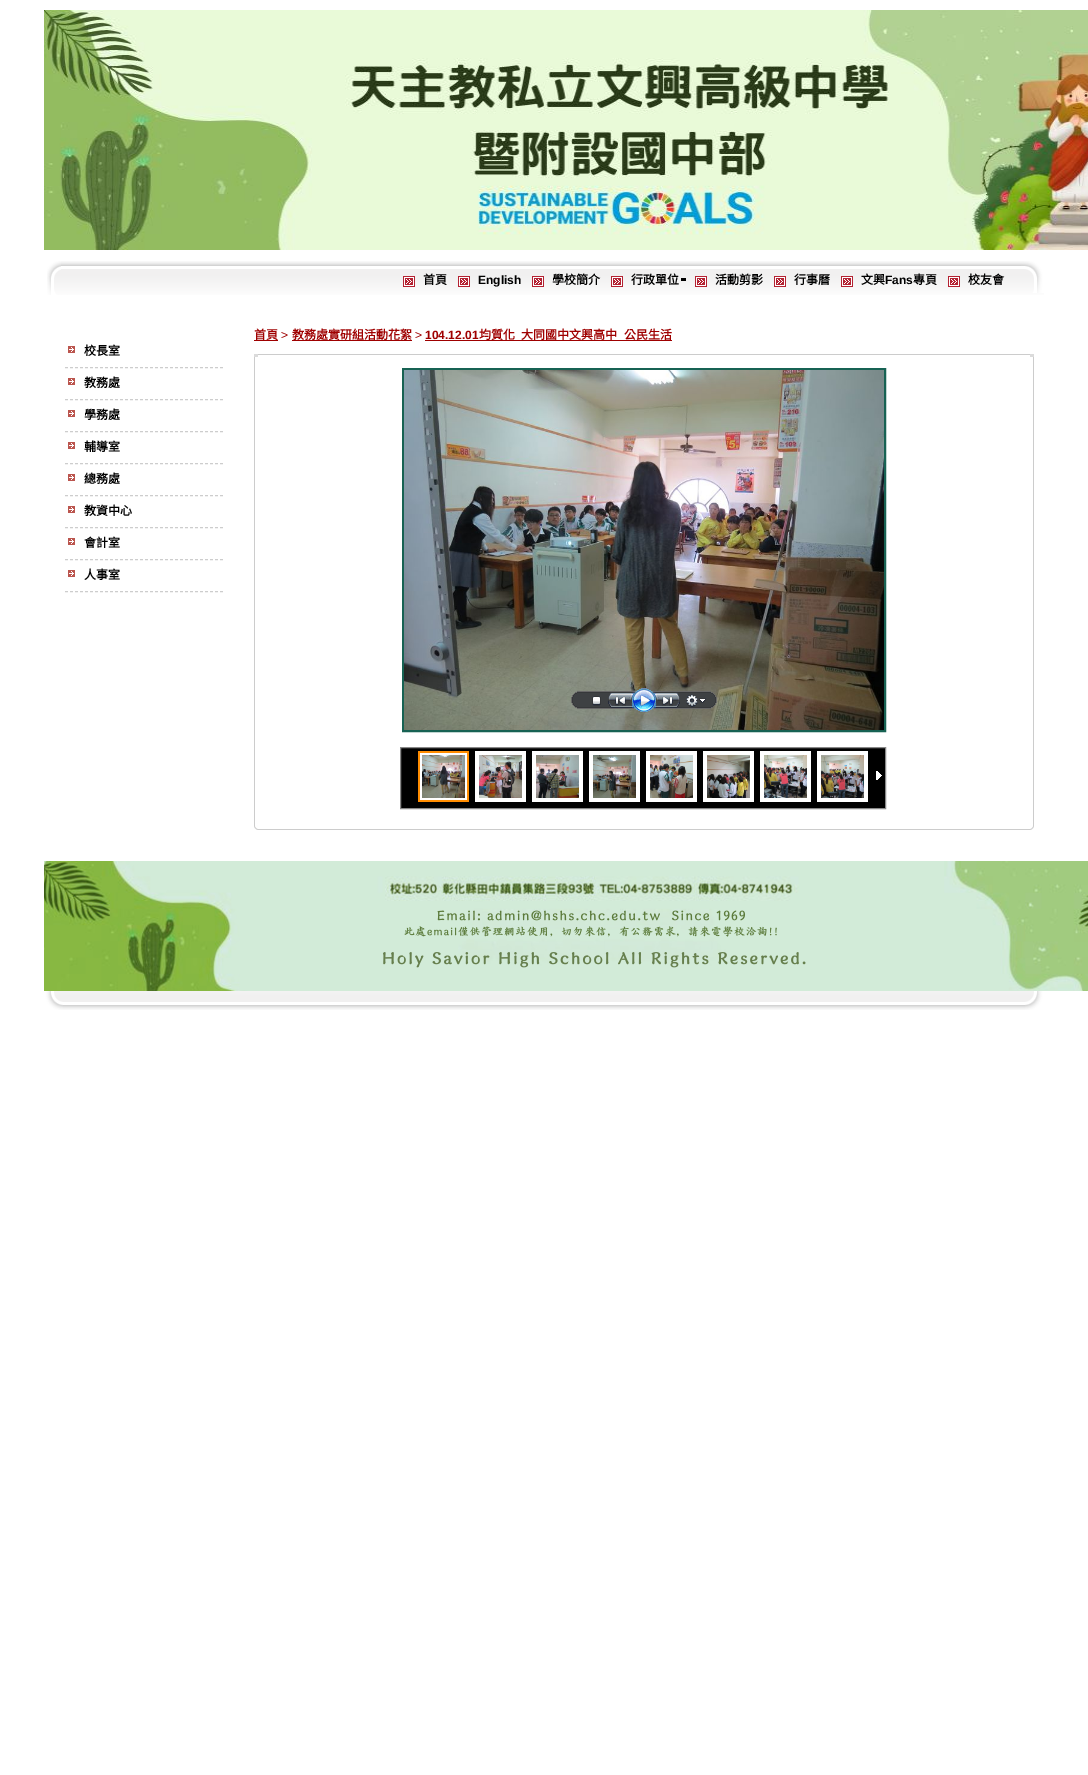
%!PS-Adobe-3.0
%%BoundingBox: 0 0 1088 1775
%%LanguageLevel: 3
%%Pages: 1
%%EndComments
%%BeginProlog
/m { moveto } bind def
/l { lineto } bind def
/h { closepath } bind def
/f { fill } bind def
/S { stroke } bind def
/q { gsave } bind def
/Q { grestore } bind def
/w { setlinewidth } bind def
/fn { [ exch dup neg 0 0 3 -1 roll 0 0 ] selectfont } def
/tx { moveto show } def
/bx { rectfill } def
/im { 5 dict begin { /h /w /y /x /name } { exch def } forall
  gsave x y translate w h scale
  w h 8 [w 0 0 h 0 0] name (r) file false 3 colorimage grestore end } def
%%EndProlog
%%BeginSetup
<< /PageSize [1088 1775] >> setpagedevice
%%EndSetup
%%Page: 1 1
0 1775 translate 1 -1 scale
4 setmiterlimit
1 setgray
0 0 1088 1775 bx
(image0.raw) 44 10 1044 240 im
(image1.raw) 47 261 997 34 im
(image2.raw) 61 261 983 32 im
(image3.raw) 403 276 12 11 im
/NotoSansCJKTC-Bold 12 fn
0 setgray
(首頁) 423 284 tx
(image3.raw) 458 276 12 11 im
/LiberationSans-Bold 12 fn
(English) 478 284 tx
(image3.raw) 532 276 12 11 im
/NotoSansCJKTC-Bold 12 fn
(學校簡介) 552 284 tx
(image3.raw) 611 276 12 11 im
(行政單位) 631 284 tx
681 278 5 3 bx
(image3.raw) 695 276 12 11 im
(活動剪影) 715 284 tx
(image3.raw) 774 276 12 11 im
(行事曆) 794 284 tx
(image3.raw) 841 276 12 11 im
(文興) 861 284 tx
/LiberationSans-Bold 12 fn
(Fans) 885 284 tx
/NotoSansCJKTC-Bold 12 fn
(專頁) 913 284 tx
(image3.raw) 948 276 12 11 im
(校友會) 968 284 tx
0.624 0 0 setrgbcolor
(首頁) 254 339 tx
254 340 24 1 bx
/LiberationSans-Regular 12 fn
(>) 281 339 tx
/NotoSansCJKTC-Bold 12 fn
(教務處實研組活動花絮) 292 339 tx
292 340 120 1 bx
/LiberationSans-Regular 12 fn
(>) 415 339 tx
/LiberationSans-Bold 12 fn
(104.12.01) 425 339 tx
425 340 247 1 bx
/NotoSansCJKTC-Bold 12 fn
(均質化) 479 339 tx
(大同國中文興高中) 521 339 tx
(公民生活) 624 339 tx
0.8 setgray
254 354 780 1 bx
0.859 setgray
254 354 4 3 bx
1030 354 4 3 bx
0.8 setgray
1033 357 1 463 bx
254 357 1 463 bx
0.09 0.384 0.325 setrgbcolor
2 w
403 369 482 362 rectstroke
(image4.raw) 404 370 480 360 im
(image5.raw) 571 691 8 18 im
(image6.raw) 579 691 53 18 im
(image7.raw) 632 688 24 24 im
(image6.raw) 656 691 53 18 im
(image8.raw) 709 691 8 18 im
(image9.raw) 592 696 9 10 im
(image10.raw) 608 693 24 15 im
(image11.raw) 656 693 24 15 im
(image12.raw) 686 694 20 13 im
0 setgray
400.5 747.5 m 885.5 747.5 l 885.5 808.5 l 400.5 808.5 l h q f Q
0.533 setgray
1 w
S
1 0.549 0 setrgbcolor
418 751 51 51 bx
1 setgray
420 753 47 47 bx
(image13.raw) 422 755 43 43 im
475 751 51 51 bx
(image14.raw) 479 755 43 43 im
532 751 51 51 bx
(image15.raw) 536 755 43 43 im
589 751 51 51 bx
(image16.raw) 593 755 43 43 im
646 751 51 51 bx
(image17.raw) 650 755 43 43 im
703 751 51 51 bx
(image18.raw) 707 755 43 43 im
760 751 51 51 bx
(image19.raw) 764 755 43 43 im
817 751 51 51 bx
(image20.raw) 821 755 43 43 im
(image21.raw) 876 771 6 9 im
0.8 setgray
254 829 780 1 bx
(image22.raw) 254 820 4 10 im
(image23.raw) 1030 820 4 10 im
(image24.raw) 68 346 7 7 im
0.804 setgray
[3 2] 0 setdash
65 367.5 m 223 367.5 l S
0 setgray
(校長室) 84 355 tx
(image24.raw) 68 378 7 7 im
0.804 setgray
65 399.5 m 223 399.5 l S
0 setgray
(教務處) 84 387 tx
(image24.raw) 68 410 7 7 im
0.804 setgray
65 431.5 m 223 431.5 l S
0 setgray
(學務處) 84 419 tx
(image24.raw) 68 442 7 7 im
0.804 setgray
65 463.5 m 223 463.5 l S
0 setgray
(輔導室) 84 451 tx
(image24.raw) 68 474 7 7 im
0.804 setgray
65 495.5 m 223 495.5 l S
0 setgray
(總務處) 84 483 tx
(image24.raw) 68 506 7 7 im
0.804 setgray
65 527.5 m 223 527.5 l S
0 setgray
(教資中心) 84 515 tx
(image24.raw) 68 538 7 7 im
0.804 setgray
65 559.5 m 223 559.5 l S
0 setgray
(會計室) 84 547 tx
(image24.raw) 68 570 7 7 im
0.804 setgray
65 591.5 m 223 591.5 l S
0 setgray
(人事室) 84 579 tx
(image25.raw) 63 991 962 19 im
(image26.raw) 44 991 19 19 im
(image27.raw) 1025 991 19 19 im
(image28.raw) 44 861 1044 130 im
showpage
%%EOF
